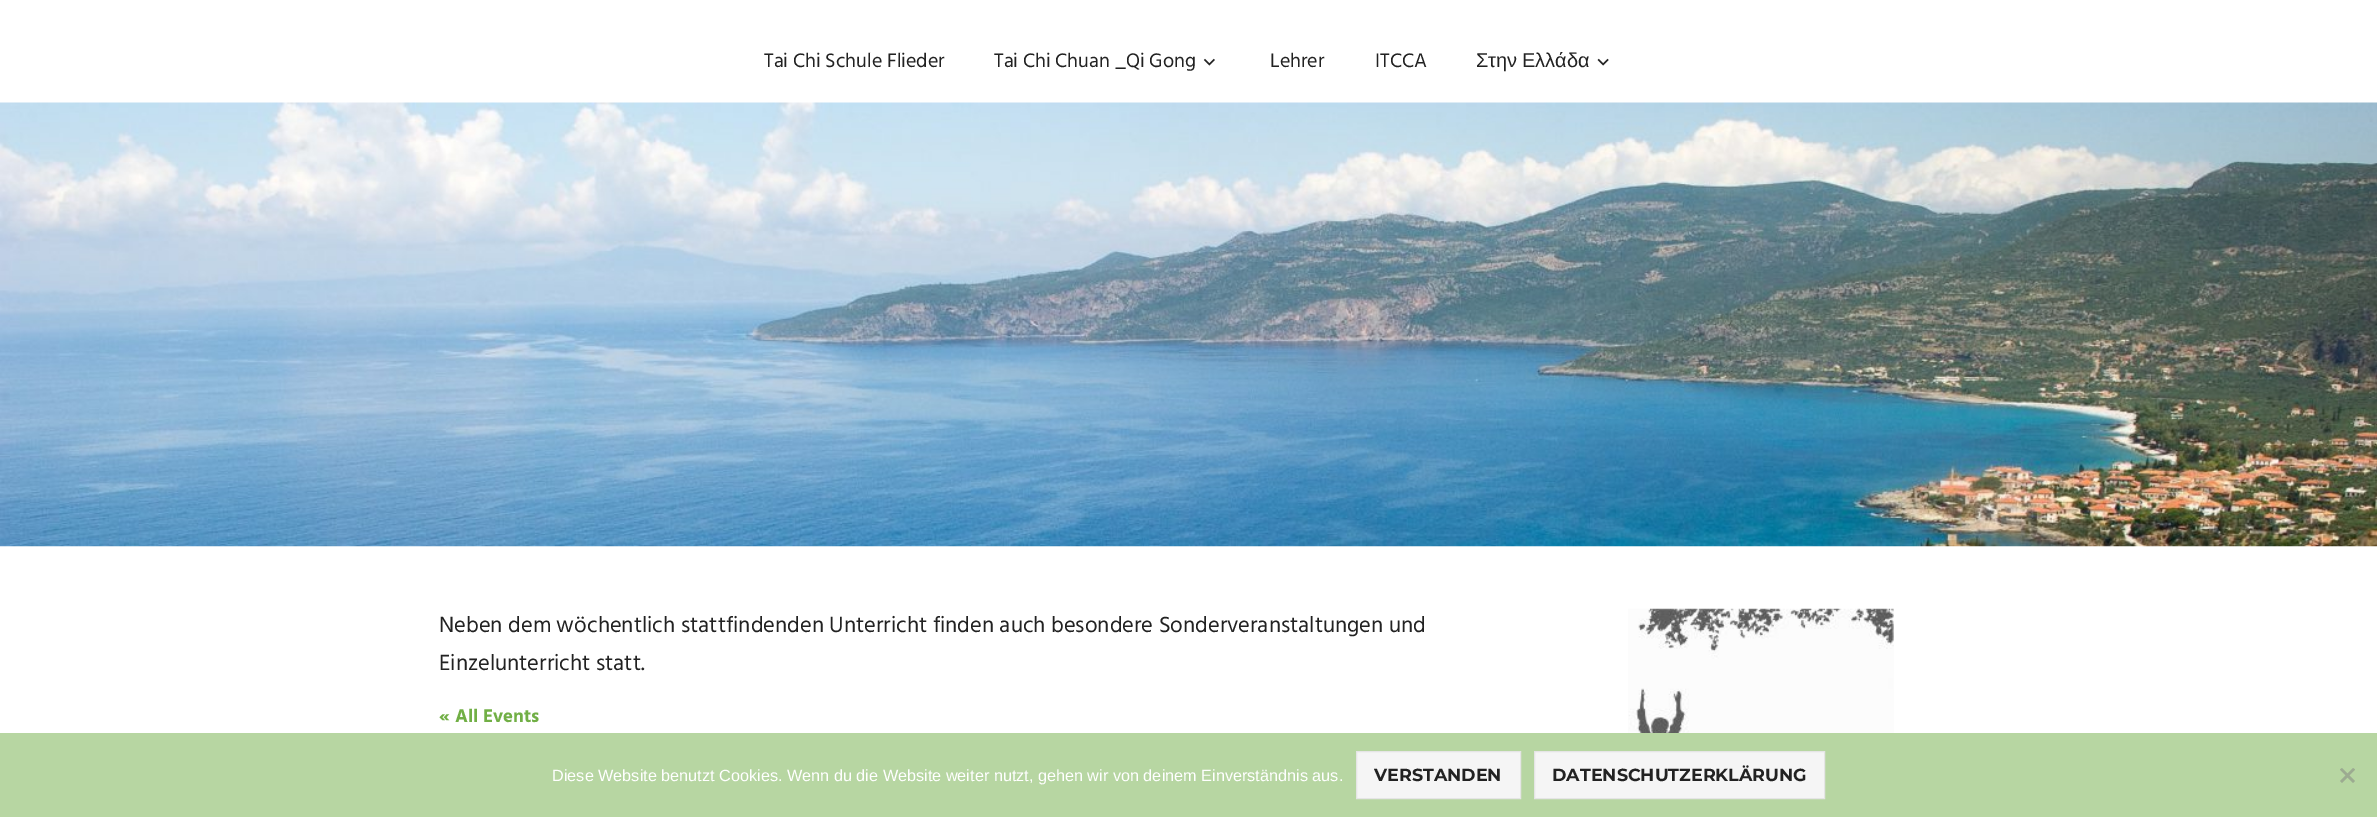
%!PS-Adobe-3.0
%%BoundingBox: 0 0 2377 817
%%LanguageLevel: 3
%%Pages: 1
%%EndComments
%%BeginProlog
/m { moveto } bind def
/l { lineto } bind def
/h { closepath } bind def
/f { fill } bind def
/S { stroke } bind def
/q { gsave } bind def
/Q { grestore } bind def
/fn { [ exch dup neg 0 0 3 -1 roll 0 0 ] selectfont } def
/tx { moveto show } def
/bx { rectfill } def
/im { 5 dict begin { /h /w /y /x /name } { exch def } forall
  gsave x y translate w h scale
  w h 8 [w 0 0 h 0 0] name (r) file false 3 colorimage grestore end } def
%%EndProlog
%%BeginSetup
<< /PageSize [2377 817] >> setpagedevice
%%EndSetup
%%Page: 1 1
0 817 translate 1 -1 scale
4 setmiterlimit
1 setgray
0 0 2377 817 bx
/Hind-Regular 20 fn
0.133 setgray
(Tai Chi Schule Flieder) 764 67 tx
(Tai Chi Chuan _Qi Gong) 994 67 tx
(image0.raw) 1203 58 12 8 im
(Lehrer) 1270 67 tx
(ITCCA) 1375 67 tx
/LiberationSans-Regular 20 fn
1476 67 m -1 0 32 (Στην Ελλάδα) widthshow
(image1.raw) 1597 58 12 8 im
(image2.raw) 0 102 2377 445 im
/Hind-Regular 22.5 fn
(Neben dem wöchentlich stattfindenden Unterricht finden auch besondere Sonderveranstaltungen und) 439 632 tx
(Einzelunterricht statt.) 439 670 tx
/Hind-Bold 18.75 fn
0.443 0.686 0.271 setrgbcolor
(« All Events) 439 722 tx
(image3.raw) 1628 608 266 125 im
0.718 0.839 0.635 setrgbcolor
0 733 2377 84 bx
/LiberationSans-Regular 16.25 fn
1 setgray
(Diese Website benutzt Cookies. Wenn du die Website weiter nutzt, gehen wir von deinem Einverständnis aus.) 552 781 tx
0.961 setgray
1356.5 751.5 m 1520.5 751.5 l 1520.5 798.5 l 1356.5 798.5 l h q f Q
0.898 setgray
S
/Montserrat-Bold 17.5 fn
0.133 setgray
(VERSTANDEN) 1374 781 tx
0.961 setgray
1534.5 751.5 m 1824.5 751.5 l 1824.5 798.5 l 1534.5 798.5 l h q f Q
0.898 setgray
S
0.133 setgray
(DATENSCHUTZERKLÄRUNG) 1552 781 tx
0.612 0.671 0.569 setrgbcolor
2353 768 m 2355 769.5 l 2342 783 l 2340 781 l h f
2340 769.5 m 2342 768 l 2355 781 l 2353 783 l h f
showpage
%%EOF
